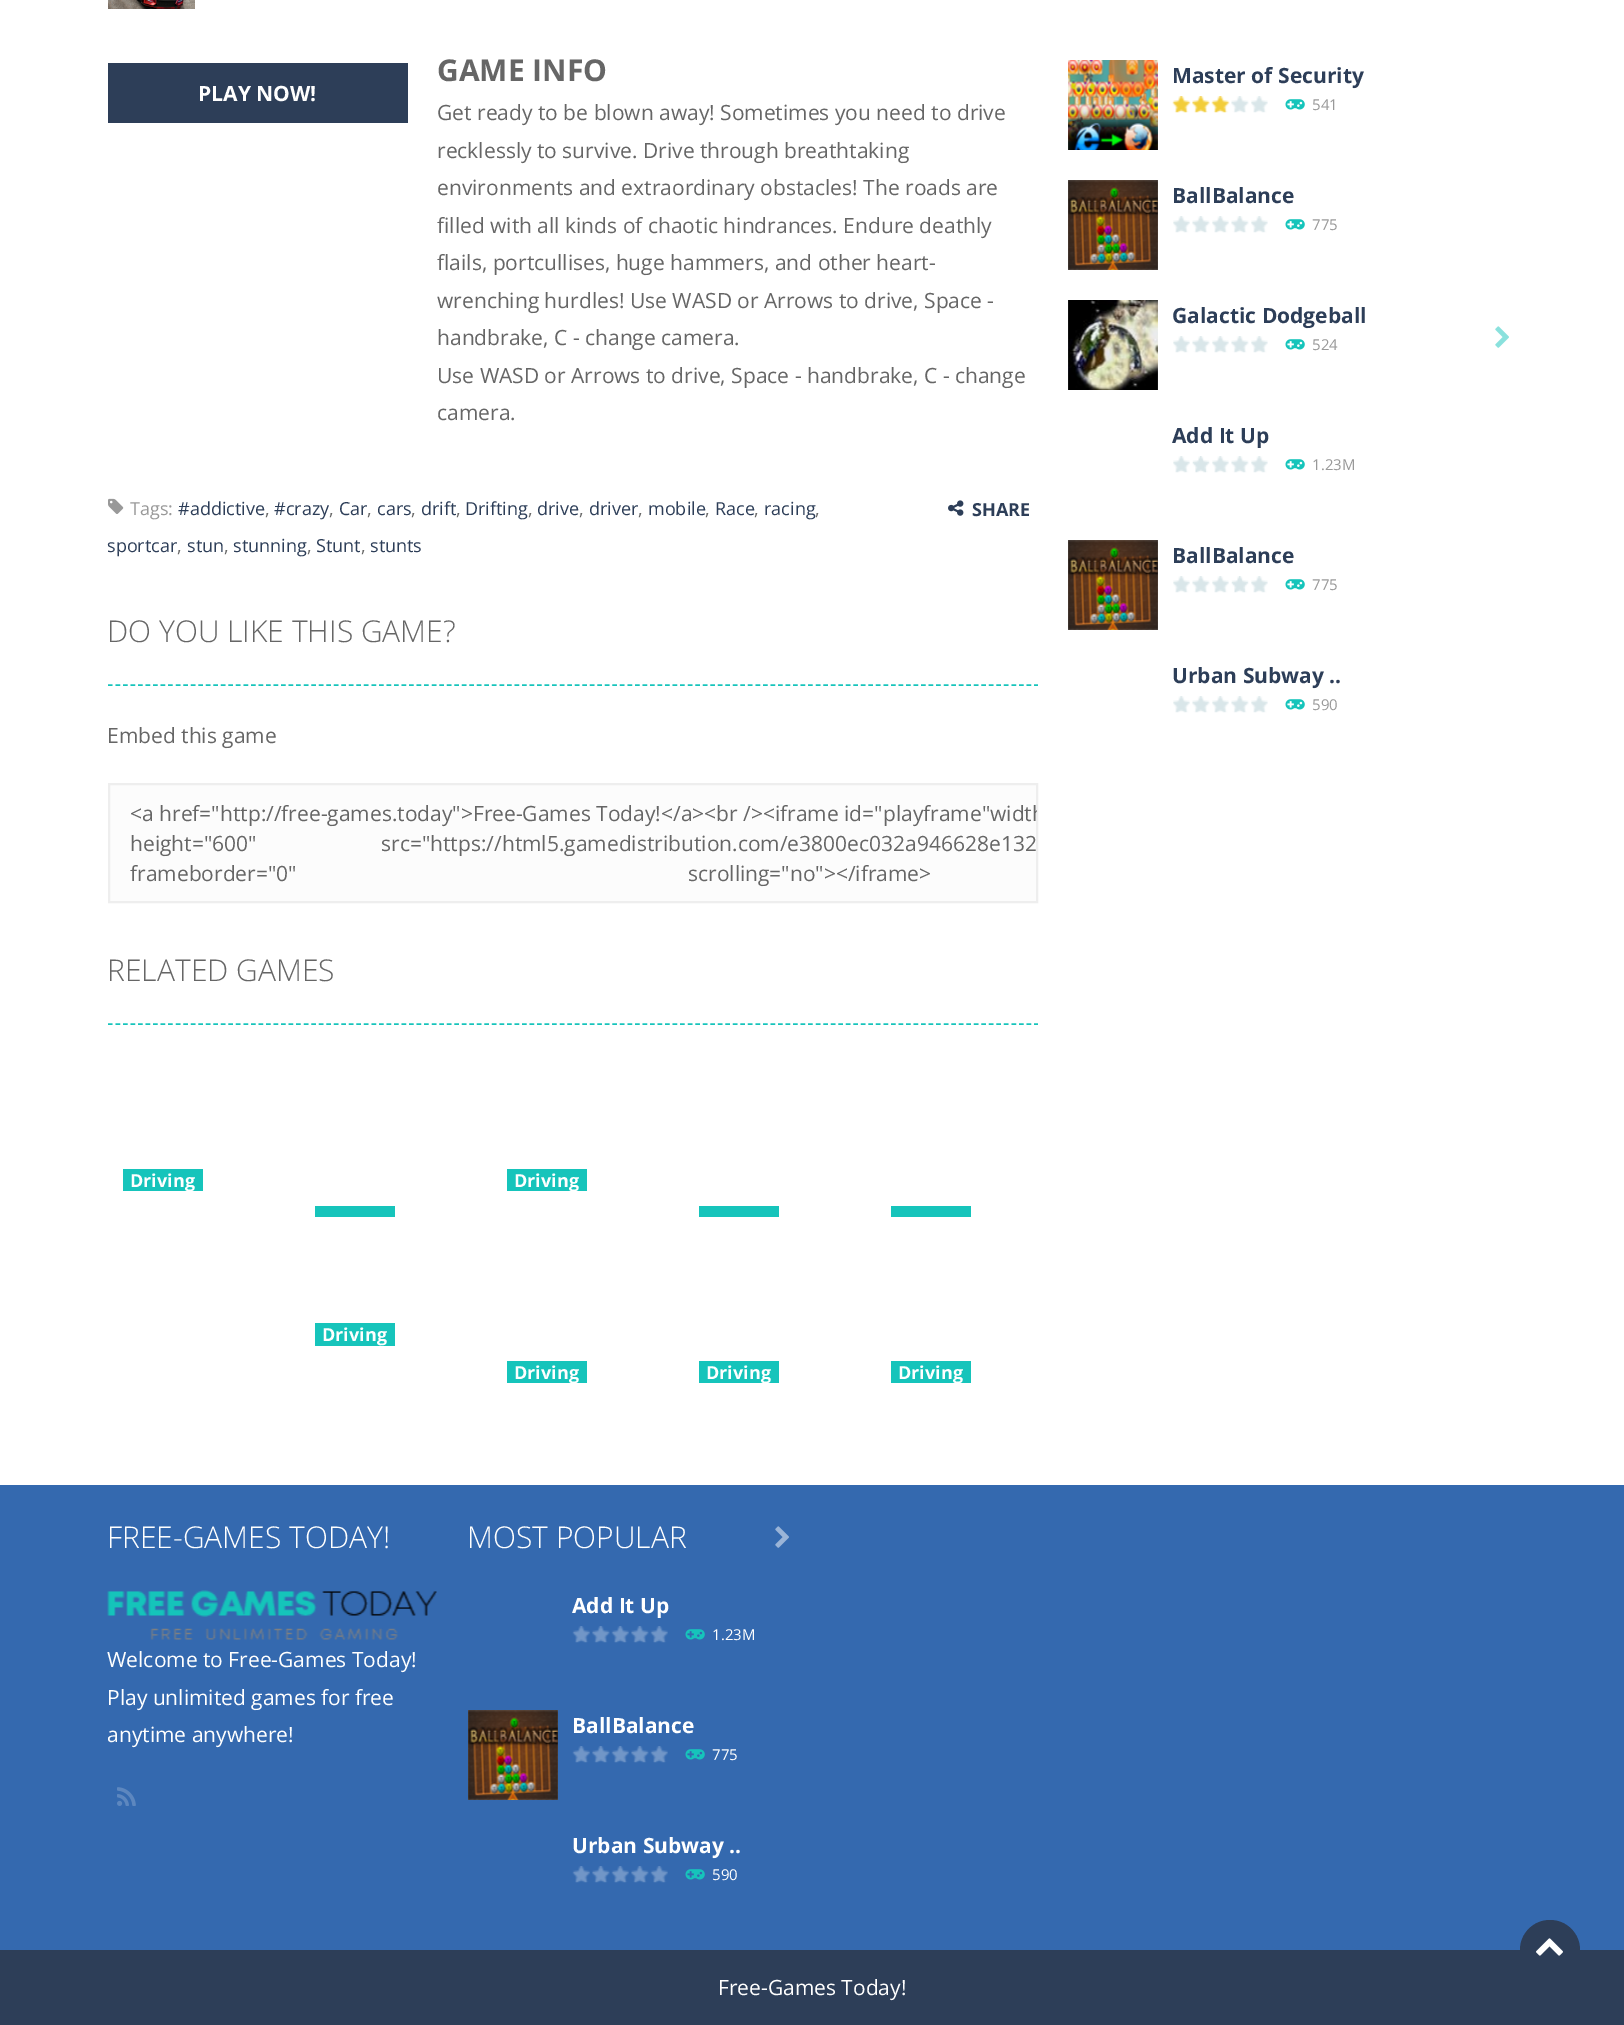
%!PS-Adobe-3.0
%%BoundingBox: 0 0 1624 2025
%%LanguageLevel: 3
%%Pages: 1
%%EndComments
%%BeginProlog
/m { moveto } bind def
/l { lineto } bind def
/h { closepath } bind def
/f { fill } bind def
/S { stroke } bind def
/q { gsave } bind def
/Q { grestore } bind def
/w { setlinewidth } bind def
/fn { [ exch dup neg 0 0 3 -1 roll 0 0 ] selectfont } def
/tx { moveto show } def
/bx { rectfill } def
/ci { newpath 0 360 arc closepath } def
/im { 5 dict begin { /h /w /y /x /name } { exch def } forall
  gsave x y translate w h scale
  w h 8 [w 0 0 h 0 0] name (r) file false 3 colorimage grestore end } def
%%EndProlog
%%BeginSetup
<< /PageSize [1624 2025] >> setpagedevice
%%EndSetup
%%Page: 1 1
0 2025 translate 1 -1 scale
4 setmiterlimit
1 setgray
0 0 1624 2025 bx
(image0.raw) 108 0 87 9 im
0.176 0.243 0.345 setrgbcolor
108 63 300 60 bx
/OpenSans-Bold 21 fn
1 setgray
(PLAY NOW!) 198 101 tx
/OpenSans-Bold 30 fn
0.4 setgray
(GAME INFO) 437 81 tx
/OpenSans-Regular 21 fn
(Get ready to be blown away! Sometimes you need to drive) 437 120 tx
(recklessly to survive. Drive through breathtaking) 437 158 tx
(environments and extraordinary obstacles! The roads are) 437 195 tx
(filled with all kinds of chaotic hindrances. Endure deathly) 437 233 tx
(flails, portcullises, huge hammers, and other heart-) 437 270 tx
(wrenching hurdles! Use WASD or Arrows to drive, Space -) 437 308 tx
(handbrake, C - change camera.) 437 345 tx
(Use WASD or Arrows to drive, Space - handbrake, C - change) 437 383 tx
(camera.) 437 420 tx
(image1.raw) 108 498 16 16 im
/OpenSans-Regular 18 fn
0.6 setgray
(Tags:) 130 515 tx
0.176 0.243 0.345 setrgbcolor
(#addictive) 178 515 tx
0.4 setgray
(,) 265 515 tx
0.176 0.243 0.345 setrgbcolor
(#crazy) 274 515 tx
0.4 setgray
(,) 329 515 tx
0.176 0.243 0.345 setrgbcolor
(Car) 339 515 tx
0.4 setgray
(,) 367 515 tx
0.176 0.243 0.345 setrgbcolor
(cars) 377 515 tx
0.4 setgray
(,) 411 515 tx
0.176 0.243 0.345 setrgbcolor
(drift) 421 515 tx
0.4 setgray
(,) 456 515 tx
0.176 0.243 0.345 setrgbcolor
(Drifting) 465 515 tx
0.4 setgray
(,) 528 515 tx
0.176 0.243 0.345 setrgbcolor
(drive) 537 515 tx
0.4 setgray
(,) 579 515 tx
0.176 0.243 0.345 setrgbcolor
(driver) 589 515 tx
0.4 setgray
(,) 638 515 tx
0.176 0.243 0.345 setrgbcolor
(mobile) 648 515 tx
0.4 setgray
(,) 705 515 tx
0.176 0.243 0.345 setrgbcolor
(Race) 715 515 tx
0.4 setgray
(,) 754 515 tx
0.176 0.243 0.345 setrgbcolor
(racing) 764 515 tx
0.4 setgray
(,) 815 515 tx
0.176 0.243 0.345 setrgbcolor
(sportcar) 107 552 tx
0.4 setgray
(,) 177 552 tx
0.176 0.243 0.345 setrgbcolor
(stun) 187 552 tx
0.4 setgray
(,) 224 552 tx
0.176 0.243 0.345 setrgbcolor
(stunning) 233 552 tx
0.4 setgray
(,) 307 552 tx
0.176 0.243 0.345 setrgbcolor
(Stunt) 316 552 tx
0.4 setgray
(,) 361 552 tx
0.176 0.243 0.345 setrgbcolor
(stunts) 370 552 tx
(image2.raw) 948 500 16 16 im
/OpenSans-Bold 18 fn
(SHARE) 972 516 tx
0.086 0.769 0.733 setrgbcolor
1.5 w
[4.5 3.03] 0 setdash
108 685 m 1038 685 l S
/OpenSans-Light 30 fn
0.4 setgray
(DO YOU LIKE THIS GAME?) 107 642 tx
/OpenSans-Regular 21 fn
(Embed this game) 107 743 tx
0.988 setgray
109 784 m 1037 784 l 1037 902 l 109 902 l h q f Q
0.933 setgray
2 w
[] 0 setdash
S
0.4 setgray
(<a href="http://free-games.today">Free-Games Today!</a><br /><iframe id="playframe") 130 821 tx
q
110 785 927 117 rectclip
(width) 990 821 tx
Q
(height="600") 130 851 tx
(src="https://html5.gamedistribution.com/e3800ec032a946628e132) 381 851 tx
130 881 m 386 0 32 (frameborder="0" scrolling="no"></iframe>) widthshow
0.086 0.769 0.733 setrgbcolor
1.5 w
[4.5 3.03] 0 setdash
108 1024 m 1038 1024 l S
/OpenSans-Light 30 fn
0.4 setgray
(RELATED GAMES) 107 981 tx
0.086 0.769 0.733 setrgbcolor
123 1169 80 22 bx
/OpenSans-Bold 18 fn
1 setgray
(Driving) 130 1187 tx
0.086 0.769 0.733 setrgbcolor
507 1169 80 22 bx
1 setgray
(Driving) 514 1187 tx
0.086 0.769 0.733 setrgbcolor
315 1206 80 11 bx
699 1206 80 11 bx
891 1206 80 11 bx
315 1323 80 23 bx
1 setgray
(Driving) 322 1341 tx
0.086 0.769 0.733 setrgbcolor
507 1361 80 22 bx
1 setgray
(Driving) 514 1379 tx
0.086 0.769 0.733 setrgbcolor
699 1361 80 22 bx
1 setgray
(Driving) 706 1379 tx
0.086 0.769 0.733 setrgbcolor
891 1361 80 22 bx
1 setgray
(Driving) 898 1379 tx
(image3.raw) 1068 60 90 90 im
(image4.raw) 1068 60 90 90 im
/OpenSans-Bold 21 fn
0.176 0.243 0.345 setrgbcolor
(Master of Security) 1172 83 tx
(image5.raw) 1172 96 19 17 im
(image6.raw) 1192 96 18 17 im
(image5.raw) 1211 96 19 17 im
(image7.raw) 1231 96 18 17 im
(image8.raw) 1251 96 17 17 im
(image9.raw) 1285 99 20 11 im
/OpenSans-Regular 15 fn
0.6 setgray
(541) 1312 110 tx
(image10.raw) 1068 180 90 90 im
(image11.raw) 1068 180 90 90 im
/OpenSans-Bold 21 fn
0.176 0.243 0.345 setrgbcolor
(BallBalance) 1172 203 tx
(image8.raw) 1173 216 17 17 im
(image7.raw) 1192 216 18 17 im
(image8.raw) 1212 216 17 17 im
(image7.raw) 1231 216 18 17 im
(image8.raw) 1251 216 17 17 im
(image9.raw) 1285 219 20 11 im
/OpenSans-Regular 15 fn
0.6 setgray
(775) 1312 230 tx
(image12.raw) 1068 300 90 90 im
(image13.raw) 1068 300 90 90 im
/OpenSans-Bold 21 fn
0.176 0.243 0.345 setrgbcolor
(Galactic Dodgeball) 1172 323 tx
(image8.raw) 1173 336 17 17 im
(image7.raw) 1192 336 18 17 im
(image8.raw) 1212 336 17 17 im
(image7.raw) 1231 336 18 17 im
(image8.raw) 1251 336 17 17 im
(image9.raw) 1285 339 20 11 im
/OpenSans-Regular 15 fn
0.6 setgray
(524) 1312 350 tx
(image14.raw) 1495 326 14 22 im
/OpenSans-Bold 21 fn
0.176 0.243 0.345 setrgbcolor
(Add It Up) 1172 443 tx
(image8.raw) 1173 456 17 17 im
(image15.raw) 1192 456 18 17 im
(image8.raw) 1212 456 17 17 im
(image7.raw) 1231 456 18 17 im
(image8.raw) 1251 456 17 17 im
(image9.raw) 1285 459 20 11 im
/OpenSans-Regular 15 fn
0.6 setgray
(1.23M) 1312 470 tx
(image10.raw) 1068 540 90 90 im
(image11.raw) 1068 540 90 90 im
/OpenSans-Bold 21 fn
0.176 0.243 0.345 setrgbcolor
(BallBalance) 1172 563 tx
(image8.raw) 1173 576 17 17 im
(image7.raw) 1192 576 18 17 im
(image8.raw) 1212 576 17 17 im
(image15.raw) 1231 576 18 17 im
(image8.raw) 1251 576 17 17 im
(image9.raw) 1285 579 20 11 im
/OpenSans-Regular 15 fn
0.6 setgray
(775) 1312 590 tx
/OpenSans-Bold 21 fn
0.176 0.243 0.345 setrgbcolor
(Urban Subway ..) 1172 683 tx
(image8.raw) 1173 696 17 17 im
(image7.raw) 1192 696 18 17 im
(image8.raw) 1212 696 17 17 im
(image7.raw) 1231 696 18 17 im
(image8.raw) 1251 696 17 17 im
(image9.raw) 1285 699 20 11 im
/OpenSans-Regular 15 fn
0.6 setgray
(590) 1312 710 tx
0.204 0.412 0.686 setrgbcolor
0 1485 1624 465 bx
/OpenSans-Light 30 fn
1 setgray
(FREE-GAMES TODAY!) 107 1548 tx
(image16.raw) 107 1590 330 50 im
/OpenSans-Regular 21 fn
(Welcome to Free-Games Today!) 107 1667 tx
(Play unlimited games for free) 107 1705 tx
(anytime anywhere!) 107 1742 tx
(image17.raw) 117 1787 19 19 im
/OpenSans-Light 30 fn
(MOST POPULAR) 467 1548 tx
(image18.raw) 775 1526 14 22 im
/OpenSans-Bold 21 fn
(Add It Up) 572 1613 tx
(image19.raw) 572 1626 18 17 im
(image20.raw) 592 1626 18 17 im
(image19.raw) 611 1626 18 17 im
(image20.raw) 631 1626 18 17 im
(image19.raw) 650 1626 18 17 im
(image21.raw) 685 1629 20 11 im
/OpenSans-Regular 15 fn
(1.23M) 712 1640 tx
(image10.raw) 468 1710 90 90 im
(image11.raw) 468 1710 90 90 im
/OpenSans-Bold 21 fn
(BallBalance) 572 1733 tx
(image19.raw) 572 1746 18 17 im
(image20.raw) 592 1746 18 17 im
(image19.raw) 611 1746 18 17 im
(image20.raw) 631 1746 18 17 im
(image19.raw) 650 1746 18 17 im
(image21.raw) 685 1749 20 11 im
/OpenSans-Regular 15 fn
(775) 712 1760 tx
/OpenSans-Bold 21 fn
(Urban Subway ..) 572 1853 tx
(image19.raw) 572 1866 18 17 im
(image20.raw) 592 1866 18 17 im
(image19.raw) 611 1866 18 17 im
(image20.raw) 631 1866 18 17 im
(image19.raw) 650 1866 18 17 im
(image21.raw) 685 1869 20 11 im
/OpenSans-Regular 15 fn
(590) 712 1880 tx
0.176 0.243 0.345 setrgbcolor
0 1950 1624 75 bx
/OpenSans-Regular 21 fn
1 setgray
(Free-Games Today!) 718 1995 tx
0.176 0.243 0.345 setrgbcolor
1550 1950 30 ci f
(image22.raw) 1536 1938 27 18 im
showpage
%%EOF
